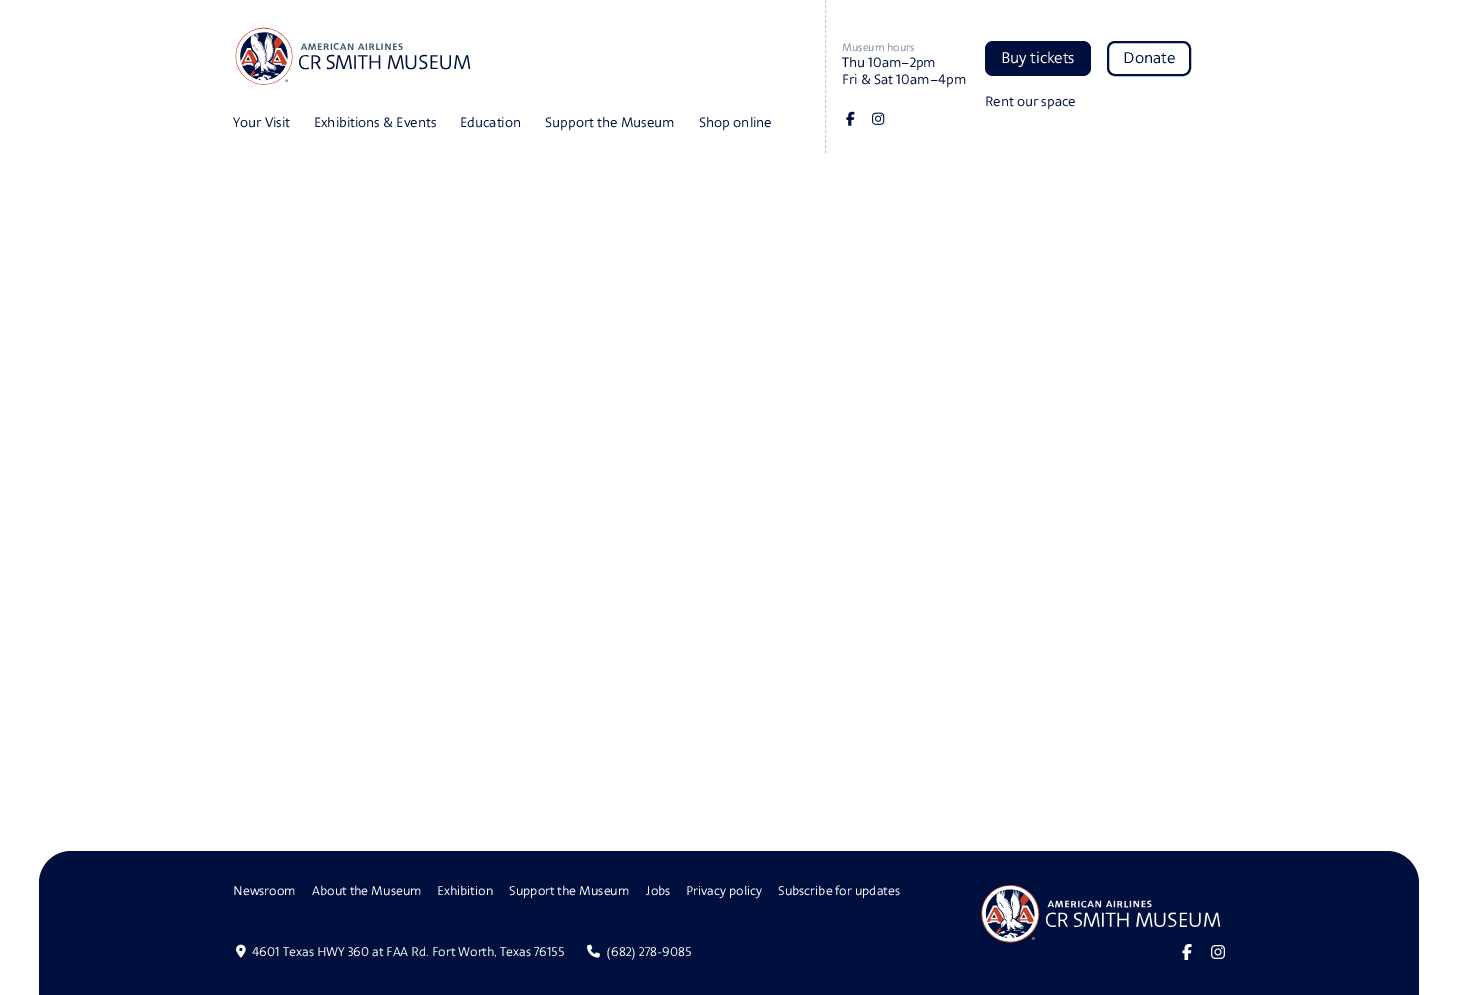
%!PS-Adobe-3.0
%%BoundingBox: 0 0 1458 995
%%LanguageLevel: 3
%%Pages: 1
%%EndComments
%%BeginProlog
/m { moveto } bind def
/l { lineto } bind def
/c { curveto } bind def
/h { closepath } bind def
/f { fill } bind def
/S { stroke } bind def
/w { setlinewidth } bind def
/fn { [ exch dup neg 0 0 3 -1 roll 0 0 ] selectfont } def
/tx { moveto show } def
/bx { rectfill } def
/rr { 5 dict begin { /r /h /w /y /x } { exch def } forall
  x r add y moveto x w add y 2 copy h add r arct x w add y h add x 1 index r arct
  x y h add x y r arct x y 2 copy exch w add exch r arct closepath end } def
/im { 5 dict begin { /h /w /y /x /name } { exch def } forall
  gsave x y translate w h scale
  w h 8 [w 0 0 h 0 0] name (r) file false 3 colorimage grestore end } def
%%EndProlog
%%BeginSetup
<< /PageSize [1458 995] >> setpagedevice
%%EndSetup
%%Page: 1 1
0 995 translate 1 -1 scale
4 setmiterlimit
1 setgray
0 0 1458 995 bx
0.8 setgray
[3 2] 0 setdash
825.5 0 m 825.5 153 l S
/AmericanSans-Regular 11 fn
0.502 0.533 0.624 setrgbcolor
(Museum hours) 842 51 tx
/AmericanSans-Regular 14 fn
0 0.063 0.243 setrgbcolor
(Thu 10am–2pm) 842 67 tx
(Fri & Sat 10am–4pm) 842 84 tx
(image0.raw) 846 111 9 15 im
(image1.raw) 872 112 13 13 im
985 41 106 35 8 rr f
/AmericanSans-Regular 16 fn
1 setgray
(Buy tickets) 1001 63 tx
0 0.063 0.243 setrgbcolor
2 w
[] 0 setdash
1108 42 82 33 7 rr S
(Donate) 1123 63 tx
/AmericanSans-Regular 14 fn
(Rent our space) 985 106 tx
(image2.raw) 235 27 236 58 im
(Your Visit) 233 127 tx
(Exhibitions & Events) 314 127 tx
(Education) 460 127 tx
(Support the Museum) 545 127 tx
(Shop online) 699 127 tx
71 851 m 1387 851 l 1404.5 851 1419 865.5 1419 883 c 1419 995 l 39 995 l 39 883 l 39 865.5 53.5 851 71 851 c h f
/AmericanSans-Regular 13 fn
1 setgray
(Newsroom) 233 895 tx
(About the Museum) 312 895 tx
(Exhibition) 437 895 tx
(Support the Museum) 509 895 tx
(Jobs) 646 895 tx
(Privacy policy) 686 895 tx
(Subscribe for updates) 778 895 tx
(image3.raw) 981 885 240 58 im
(image4.raw) 236 944 10 14 im
(4601 Texas HWY 360 at FAA Rd. Fort Worth, Texas 76155) 252 956 tx
(image5.raw) 587 944 13 14 im
(\(682\) 278-9085) 606 956 tx
(image6.raw) 1182 944 10 16 im
(image7.raw) 1211 945 14 14 im
showpage
%%EOF
